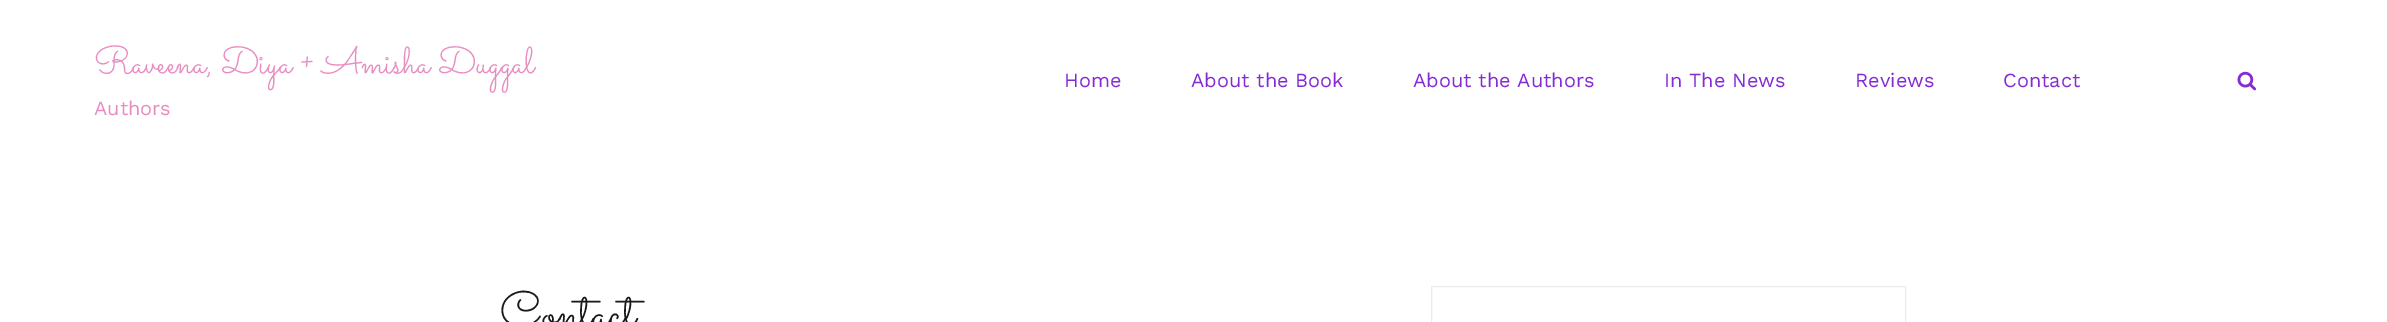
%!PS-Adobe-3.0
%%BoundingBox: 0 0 2387 322
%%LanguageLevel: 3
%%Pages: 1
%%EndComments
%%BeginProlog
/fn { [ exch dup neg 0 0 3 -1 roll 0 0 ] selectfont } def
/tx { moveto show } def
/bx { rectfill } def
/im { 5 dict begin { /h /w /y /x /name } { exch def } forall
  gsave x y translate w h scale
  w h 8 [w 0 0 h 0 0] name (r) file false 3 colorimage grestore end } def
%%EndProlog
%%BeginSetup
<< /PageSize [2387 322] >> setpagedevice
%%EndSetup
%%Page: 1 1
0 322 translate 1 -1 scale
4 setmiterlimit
1 setgray
0 0 2387 322 bx
/Sacramento-Regular 37.5 fn
0.91 0.549 0.757 setrgbcolor
(Raveena, Diya + Amisha Duggal) 94 73 tx
/WorkSans-Regular 20 fn
(Authors) 94 115 tx
0.522 0.169 0.831 setrgbcolor
(Home) 1064 87 tx
(About the Book) 1191 87 tx
(About the Authors) 1413 87 tx
(In The News) 1664 87 tx
(Reviews) 1855 87 tx
(Contact) 2003 87 tx
(image0.raw) 2237 71 19 20 im
/Sacramento-Regular 50 fn
0.098 setgray
(Contact) 500 326 tx
0.922 setgray
1431.5 286.5 474 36 rectstroke
showpage
%%EOF
